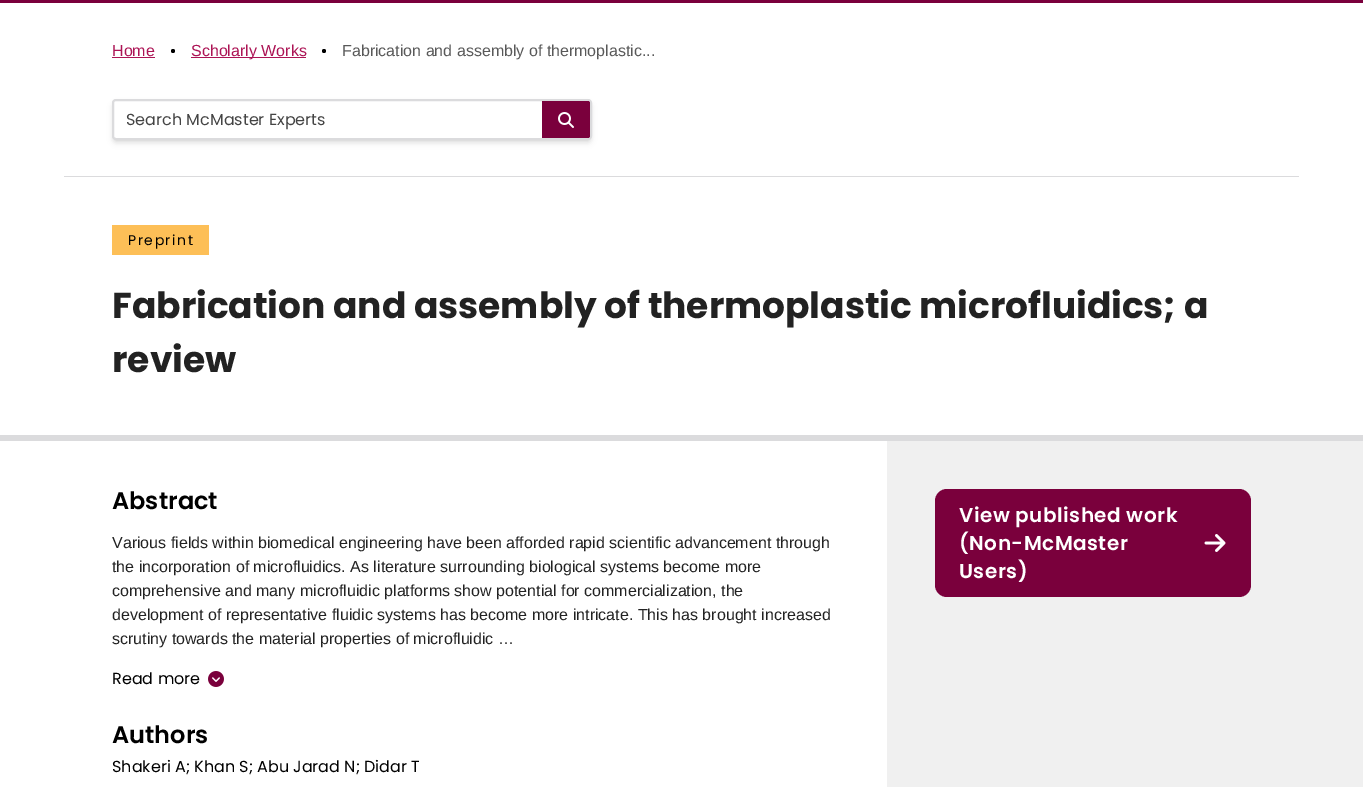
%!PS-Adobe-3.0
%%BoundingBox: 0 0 1363 787
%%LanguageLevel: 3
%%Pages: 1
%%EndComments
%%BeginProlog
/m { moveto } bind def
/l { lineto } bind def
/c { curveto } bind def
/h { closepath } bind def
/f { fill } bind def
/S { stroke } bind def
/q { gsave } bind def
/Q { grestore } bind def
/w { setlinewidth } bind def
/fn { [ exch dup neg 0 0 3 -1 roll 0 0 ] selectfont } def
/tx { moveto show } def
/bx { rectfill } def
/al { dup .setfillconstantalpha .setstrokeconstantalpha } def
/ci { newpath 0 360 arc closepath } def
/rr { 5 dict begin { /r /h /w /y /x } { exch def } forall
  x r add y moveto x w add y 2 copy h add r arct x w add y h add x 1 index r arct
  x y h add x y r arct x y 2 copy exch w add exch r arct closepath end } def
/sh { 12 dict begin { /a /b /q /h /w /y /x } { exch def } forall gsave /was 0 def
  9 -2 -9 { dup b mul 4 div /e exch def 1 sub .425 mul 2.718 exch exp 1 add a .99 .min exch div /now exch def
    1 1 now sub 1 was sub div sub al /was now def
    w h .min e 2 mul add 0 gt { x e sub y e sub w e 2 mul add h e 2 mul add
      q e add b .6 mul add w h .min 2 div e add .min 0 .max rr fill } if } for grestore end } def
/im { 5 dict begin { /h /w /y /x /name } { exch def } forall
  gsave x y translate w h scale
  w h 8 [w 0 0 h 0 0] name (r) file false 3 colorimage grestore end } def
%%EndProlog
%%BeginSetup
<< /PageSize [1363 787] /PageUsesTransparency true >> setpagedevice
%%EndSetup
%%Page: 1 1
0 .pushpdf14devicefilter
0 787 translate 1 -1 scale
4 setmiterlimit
1 setgray
0 0 1363 787 bx
0.478 0 0.235 setrgbcolor
0 0 1363 3 bx
/LiberationSans-Regular 16 fn
0.675 0.078 0.333 setrgbcolor
(Home) 112 56 tx
112 57 43 1 bx
0 setgray
173 51 2 ci f
0.675 0.078 0.333 setrgbcolor
191 57 115 1 bx
(Scholarly Works) 191 56 tx
0 setgray
324 51 2 ci f
0.349 setgray
(Fabrication and assembly of thermoplastic...) 342 56 tx
0 setgray
114 103 476 37 2 2 0.1 sh
113 104 478 39 3 3 0.1 sh
1 setgray
113 100 478 39 3 rr q f Q
0.859 0.859 0.867 setrgbcolor
2 w
S
/Poppins-Regular 16 fn
0.267 setgray
(Search McMaster Experts) 126 125 tx
0.478 0 0.235 setrgbcolor
542 101 m 588 101 l 589 101 590 102 590 103 c 590 136 l 590 137 589 138 588 138 c 542 138 l h f
(image0.raw) 558 112 16 16 im
0.859 0.859 0.867 setrgbcolor
64 176 1235 1 bx
0.992 0.749 0.341 setrgbcolor
112 225 97 30 bx
/Poppins-Regular 14 fn
0 setgray
128 245 m 1.5 0 (Preprint) ashow
/Poppins-Bold 36 fn
0.133 setgray
(Fabrication and assembly of thermoplastic microfluidics; a) 112 318 tx
(review) 112 372 tx
0.859 0.859 0.867 setrgbcolor
0 435 1363 6 bx
/Poppins-SemiBold 24 fn
0 setgray
(Abstract) 112 509 tx
/LiberationSans-Regular 16 fn
0.133 setgray
(Various fields within biomedical engineering have been afforded rapid scientific advancement through) 112 548 tx
(the incorporation of microfluidics. As literature surrounding biological systems become more) 112 572 tx
(comprehensive and many microfluidic platforms show potential for commercialization, the) 112 596 tx
(development of representative fluidic systems has become more intricate. This has brought increased) 112 620 tx
(scrutiny towards the material properties of microfluidic …) 112 644 tx
/Poppins-Regular 16 fn
0 setgray
(Read more) 112 684 tx
(image1.raw) 208 671 16 16 im
/Poppins-SemiBold 24 fn
(Authors) 112 743 tx
/Poppins-Regular 16 fn
(Shakeri A; Khan S; Abu Jarad N; Didar T) 112 772 tx
0.941 setgray
887 441 476 346 bx
0.478 0 0.235 setrgbcolor
935 489 316 108 12 rr f
/Poppins-SemiBold 20 fn
1 setgray
959 522 m 0.5 0 (View published work) ashow
959 550 m 0.5 0 (\(Non-McMaster) ashow
959 578 m 0.5 0 (Users\)) ashow
(image2.raw) 1204 534 22 18 im
.poppdf14devicefilter showpage
%%EOF
